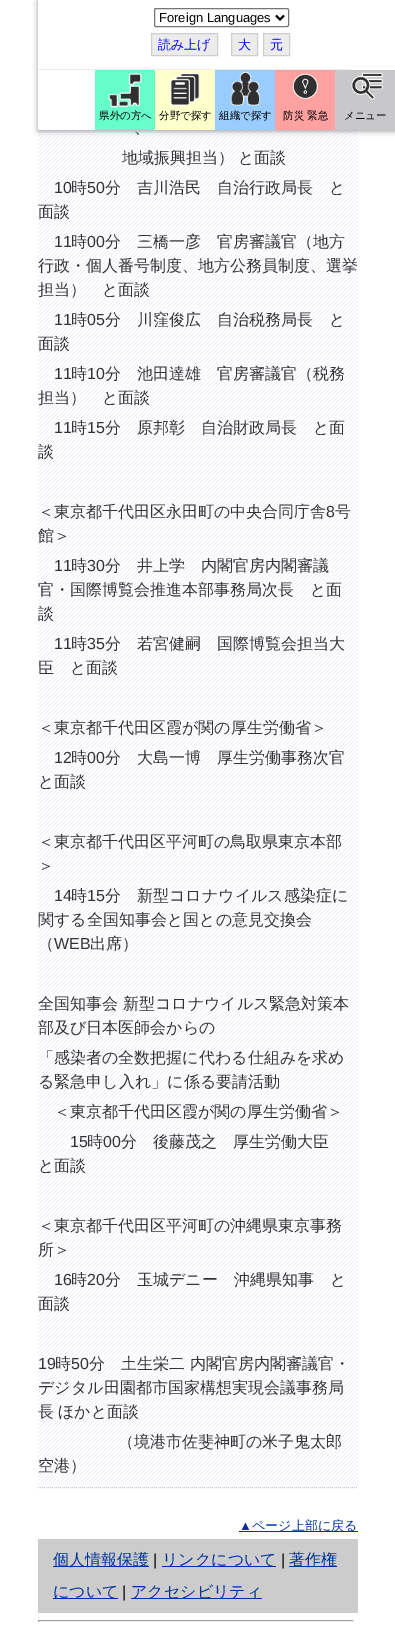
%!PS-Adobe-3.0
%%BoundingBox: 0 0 395 1635
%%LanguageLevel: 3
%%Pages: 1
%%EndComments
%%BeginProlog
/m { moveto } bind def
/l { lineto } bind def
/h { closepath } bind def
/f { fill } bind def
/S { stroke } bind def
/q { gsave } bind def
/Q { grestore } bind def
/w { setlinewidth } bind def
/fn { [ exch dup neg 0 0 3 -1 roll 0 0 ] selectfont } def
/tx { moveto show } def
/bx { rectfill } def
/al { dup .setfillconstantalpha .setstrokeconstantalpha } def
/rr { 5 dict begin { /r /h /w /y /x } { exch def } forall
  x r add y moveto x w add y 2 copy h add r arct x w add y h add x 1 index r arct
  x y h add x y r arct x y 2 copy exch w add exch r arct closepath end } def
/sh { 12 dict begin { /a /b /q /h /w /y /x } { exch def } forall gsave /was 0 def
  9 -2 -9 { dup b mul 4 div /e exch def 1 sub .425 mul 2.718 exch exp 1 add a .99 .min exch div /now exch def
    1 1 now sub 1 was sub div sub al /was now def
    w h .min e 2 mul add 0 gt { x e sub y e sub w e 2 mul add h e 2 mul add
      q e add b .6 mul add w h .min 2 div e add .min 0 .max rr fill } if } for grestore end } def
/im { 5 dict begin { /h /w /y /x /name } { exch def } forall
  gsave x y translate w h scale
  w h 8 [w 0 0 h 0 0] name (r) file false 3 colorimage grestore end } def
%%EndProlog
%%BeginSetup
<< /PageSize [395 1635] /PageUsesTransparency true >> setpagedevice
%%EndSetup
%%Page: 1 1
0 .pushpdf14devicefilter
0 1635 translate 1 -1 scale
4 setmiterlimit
1 setgray
0 0 395 1635 bx
(image5.raw) 38 130 320 1358 im
0 setgray
38 1 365 130 0 2.5 0.1 sh
38 1 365 130 0 2.5 0.1 sh
38 1 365 130 0 2.5 0.1 sh
38 1 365 130 0 2.5 0.1 sh
1 setgray
38 0 357 130 bx
0.922 setgray
38 69 313 1 bx
0.463 setgray
154.5 8.5 134 18 1.5 rr S
0 setgray
2 w
276 15.5 m 280 19.5 l 284 15.5 l S
/LiberationSans-Regular 13 fn
(Foreign Languages) 159 22 tx
0.925 setgray
151.5 33.5 m 217.5 33.5 l 217.5 55.5 l 151.5 55.5 l h q f Q
0.808 setgray
1 w
S
/WenQuanYiZenHei-Medium 13 fn
0 0 1 setrgbcolor
(読み上げ) 158 49 tx
0.925 setgray
231.5 33.5 m 257.5 33.5 l 257.5 55.5 l 231.5 55.5 l h q f Q
0.808 setgray
S
0 0 1 setrgbcolor
(大) 238 49 tx
0.925 setgray
263.5 33.5 m 289.5 33.5 l 289.5 55.5 l 263.5 55.5 l h q f Q
0.808 setgray
S
0 0 1 setrgbcolor
(元) 270 49 tx
0.4 1 0.8 setrgbcolor
95 70 60 60 bx
(image0.raw) 108 73 34 35 im
/WenQuanYiZenHei-Medium 10.5 fn
0 setgray
(県外の方へ) 99 119 tx
1 1 0.8 setrgbcolor
155 70 60 60 bx
(image1.raw) 170 72 30 34 im
0 setgray
(分野で探す) 159 119 tx
0.6 0.8 1 setrgbcolor
215 70 60 60 bx
(image2.raw) 230 71 31 35 im
0 setgray
(組織で探す) 219 119 tx
1 0.631 0.631 setrgbcolor
275 70 60 60 bx
(image3.raw) 292 73 26 26 im
0 setgray
(防災 緊急) 283 119 tx
0.784 0.784 0.796 setrgbcolor
335 70 60 60 bx
(image4.raw) 351 72 32 28 im
0 setgray
(メニュー) 344 119 tx
/WenQuanYiZenHei-Medium 16 fn
0.2 setgray
(、) 134 133 tx
(地域振興担当）) 122 163 tx
(と面談) 238 163 tx
/LiberationSans-Regular 16 fn
(10) 54 193 tx
/WenQuanYiZenHei-Medium 16 fn
(時) 71 193 tx
/LiberationSans-Regular 16 fn
(50) 87 193 tx
/WenQuanYiZenHei-Medium 16 fn
(分　吉川浩民　自治行政局長　と) 105 193 tx
(面談) 38 217 tx
/LiberationSans-Regular 16 fn
(11) 54 247 tx
/WenQuanYiZenHei-Medium 16 fn
(時) 71 247 tx
/LiberationSans-Regular 16 fn
(00) 87 247 tx
/WenQuanYiZenHei-Medium 16 fn
(分　三橋一彦　官房審議官（地方) 105 247 tx
(行政・個人番号制度、地方公務員制度、選挙) 38 271 tx
(担当）　と面談) 38 295 tx
/LiberationSans-Regular 16 fn
(11) 54 325 tx
/WenQuanYiZenHei-Medium 16 fn
(時) 71 325 tx
/LiberationSans-Regular 16 fn
(05) 87 325 tx
/WenQuanYiZenHei-Medium 16 fn
(分　川窪俊広　自治税務局長　と) 105 325 tx
(面談) 38 349 tx
/LiberationSans-Regular 16 fn
(11) 54 379 tx
/WenQuanYiZenHei-Medium 16 fn
(時) 71 379 tx
/LiberationSans-Regular 16 fn
(10) 87 379 tx
/WenQuanYiZenHei-Medium 16 fn
(分　池田達雄　官房審議官（税務) 105 379 tx
(担当）　と面談) 38 403 tx
/LiberationSans-Regular 16 fn
(11) 54 433 tx
/WenQuanYiZenHei-Medium 16 fn
(時) 71 433 tx
/LiberationSans-Regular 16 fn
(15) 87 433 tx
/WenQuanYiZenHei-Medium 16 fn
(分　原邦彰　自治財政局長　と面) 105 433 tx
q
38 0 320 1482 rectclip
(談) 38 457 tx
Q
(＜東京都千代田区永田町の中央合同庁舎) 38 517 tx
/LiberationSans-Regular 16 fn
(8) 326 517 tx
/WenQuanYiZenHei-Medium 16 fn
(号) 335 517 tx
(館＞) 38 541 tx
/LiberationSans-Regular 16 fn
(11) 54 571 tx
/WenQuanYiZenHei-Medium 16 fn
(時) 71 571 tx
/LiberationSans-Regular 16 fn
(30) 87 571 tx
/WenQuanYiZenHei-Medium 16 fn
(分　井上学　内閣官房内閣審議) 105 571 tx
(官・国際博覧会推進本部事務局次長　と面) 38 595 tx
q
38 0 320 1482 rectclip
(談) 38 619 tx
Q
/LiberationSans-Regular 16 fn
(11) 54 649 tx
/WenQuanYiZenHei-Medium 16 fn
(時) 71 649 tx
/LiberationSans-Regular 16 fn
(35) 87 649 tx
/WenQuanYiZenHei-Medium 16 fn
(分　若宮健嗣　国際博覧会担当大) 105 649 tx
(臣　と面談) 38 673 tx
(＜東京都千代田区霞が関の厚生労働省＞) 38 733 tx
/LiberationSans-Regular 16 fn
(12) 54 763 tx
/WenQuanYiZenHei-Medium 16 fn
(時) 71 763 tx
/LiberationSans-Regular 16 fn
(00) 87 763 tx
/WenQuanYiZenHei-Medium 16 fn
(分　大島一博　厚生労働事務次官) 105 763 tx
(と面談) 38 787 tx
(＜東京都千代田区平河町の鳥取県東京本部) 38 847 tx
(＞) 38 871 tx
/LiberationSans-Regular 16 fn
(14) 54 901 tx
/WenQuanYiZenHei-Medium 16 fn
(時) 71 901 tx
/LiberationSans-Regular 16 fn
(15) 87 901 tx
/WenQuanYiZenHei-Medium 16 fn
(分　新型コロナウイルス感染症に) 105 901 tx
(関する全国知事会と国との意見交換会) 38 925 tx
(（) 38 949 tx
/LiberationSans-Regular 16 fn
(WEB) 54 949 tx
/WenQuanYiZenHei-Medium 16 fn
(出席）) 90 949 tx
(全国知事会 新型コロナウイルス緊急対策本) 38 1009 tx
(部及び日本医師会からの) 38 1033 tx
(「感染者の全数把握に代わる仕組みを求め) 38 1063 tx
(る緊急申し入れ」に係る要請活動) 38 1087 tx
(＜東京都千代田区霞が関の厚生労働省＞) 54 1117 tx
/LiberationSans-Regular 16 fn
(15) 70 1147 tx
/WenQuanYiZenHei-Medium 16 fn
(時) 87 1147 tx
/LiberationSans-Regular 16 fn
(00) 103 1147 tx
/WenQuanYiZenHei-Medium 16 fn
(分　後藤茂之　厚生労働大臣) 121 1147 tx
(と面談) 38 1171 tx
(＜東京都千代田区平河町の沖縄県東京事務) 38 1231 tx
(所＞) 38 1255 tx
/LiberationSans-Regular 16 fn
(16) 54 1285 tx
/WenQuanYiZenHei-Medium 16 fn
(時) 71 1285 tx
/LiberationSans-Regular 16 fn
(20) 87 1285 tx
/WenQuanYiZenHei-Medium 16 fn
(分　玉城デニー　沖縄県知事　と) 105 1285 tx
(面談) 38 1309 tx
/LiberationSans-Regular 16 fn
(19) 38 1369 tx
/WenQuanYiZenHei-Medium 16 fn
(時) 55 1369 tx
/LiberationSans-Regular 16 fn
(50) 71 1369 tx
/WenQuanYiZenHei-Medium 16 fn
(分　土生栄二 内閣官房内閣審議官・) 89 1369 tx
(デジタル田園都市国家構想実現会議事務局) 38 1393 tx
(長) 38 1417 tx
(ほかと面談) 58 1417 tx
(（境港市佐斐神町の米子鬼太郎) 118 1447 tx
(空港）) 38 1471 tx
0.8 setgray
[1 1] 0 setdash
38 1487.5 m 358 1487.5 l S
/LiberationSans-Regular 13 fn
0 0.2 0.6 setrgbcolor
(▲) 239 1530 tx
239 1531 119 1 bx
/WenQuanYiZenHei-Medium 13 fn
(ページ上部に戻る) 252 1530 tx
0.8 setgray
38 1539 320 74 bx
0 0.2 0.6 setrgbcolor
53 1566 96 1 bx
/WenQuanYiZenHei-Medium 16 fn
(個人情報保護) 53 1565 tx
/LiberationSans-Regular 16 fn
0 setgray
(|) 153 1565 tx
0 0.2 0.6 setrgbcolor
162 1566 114 1 bx
/WenQuanYiZenHei-Medium 16 fn
(リンクについて) 162 1565 tx
/LiberationSans-Regular 16 fn
0 setgray
(|) 281 1565 tx
0 0.2 0.6 setrgbcolor
289 1566 48 1 bx
/WenQuanYiZenHei-Medium 16 fn
(著作権) 289 1565 tx
53 1598 65 1 bx
(について) 53 1597 tx
/LiberationSans-Regular 16 fn
0 setgray
(|) 122 1597 tx
0 0.2 0.6 setrgbcolor
131 1598 131 1 bx
/WenQuanYiZenHei-Medium 16 fn
(アクセシビリティ) 131 1597 tx
0.624 setgray
38 1620 316 1 bx
0.933 setgray
353 1620 1 2 bx
38 1621 316 1 bx
0.624 setgray
38 1620 1 2 bx
.poppdf14devicefilter showpage
%%EOF
